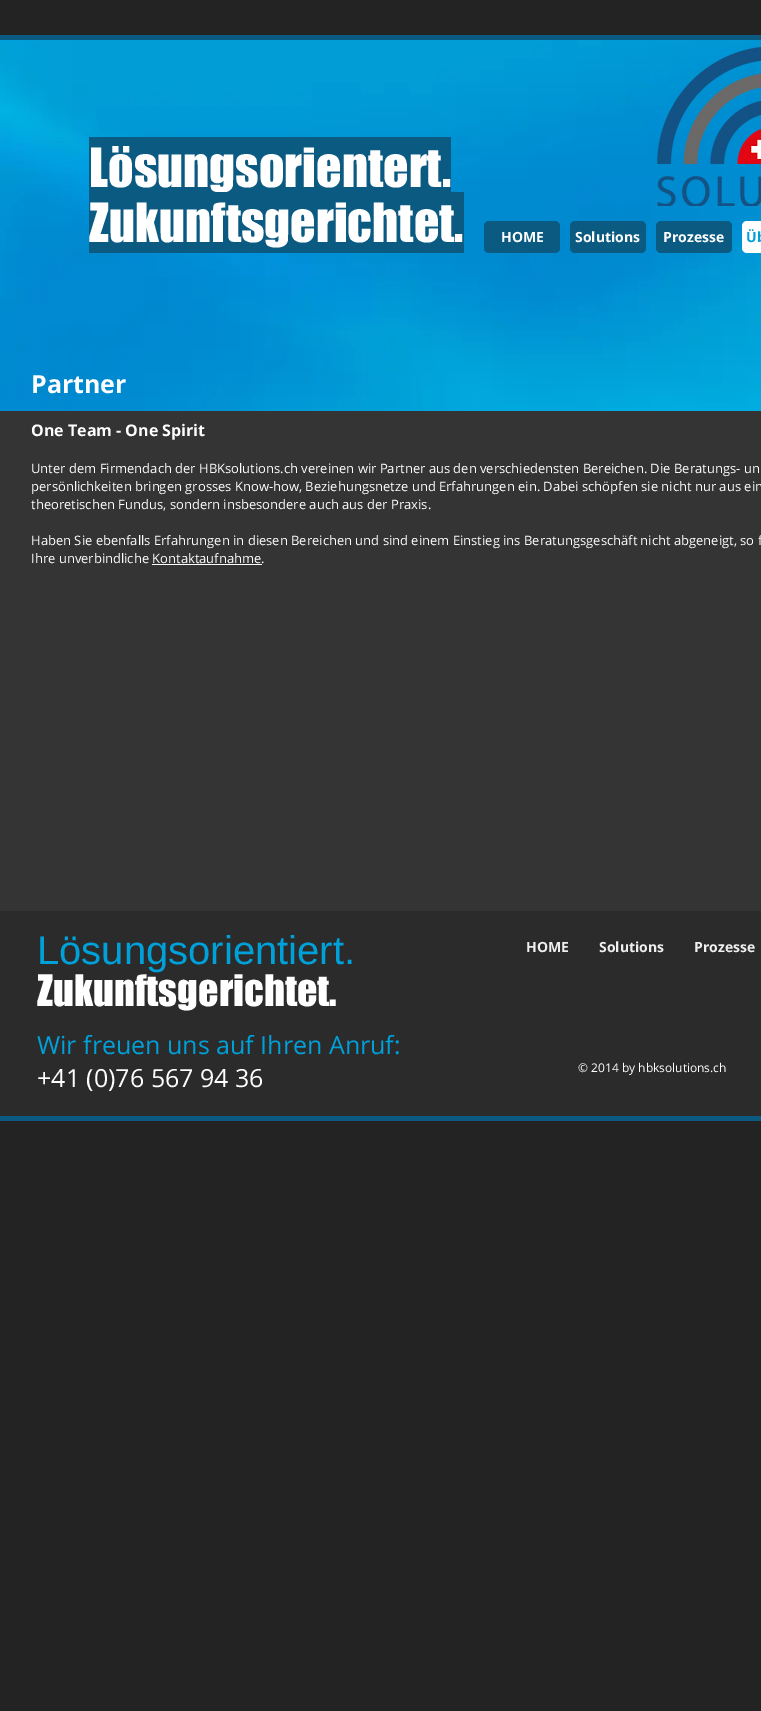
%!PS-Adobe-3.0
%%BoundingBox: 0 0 761 1711
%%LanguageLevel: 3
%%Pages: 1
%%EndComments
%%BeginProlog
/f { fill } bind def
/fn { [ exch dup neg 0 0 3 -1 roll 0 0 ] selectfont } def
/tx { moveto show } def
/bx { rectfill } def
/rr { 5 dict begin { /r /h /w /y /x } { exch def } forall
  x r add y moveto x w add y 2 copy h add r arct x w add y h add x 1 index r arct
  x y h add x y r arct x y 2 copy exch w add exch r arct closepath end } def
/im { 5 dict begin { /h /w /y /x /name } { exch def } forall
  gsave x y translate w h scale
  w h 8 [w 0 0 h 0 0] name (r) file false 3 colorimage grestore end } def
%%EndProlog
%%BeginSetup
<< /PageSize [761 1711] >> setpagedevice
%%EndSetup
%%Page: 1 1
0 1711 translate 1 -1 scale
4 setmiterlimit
0.137 setgray
0 0 761 1711 bx
0.039 0.353 0.51 setrgbcolor
0 35 761 5 bx
(image0.raw) 0 40 761 371 im
89 137 362 55 bx
/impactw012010-Regular 50 fn
1 setgray
(Lösungsorientert.) 89 187 tx
0.039 0.353 0.51 setrgbcolor
89 192 375 61 bx
1 setgray
(Zukunftsgerichtet.) 89 242 tx
(image1.raw) 657 47 104 159 im
0.039 0.353 0.51 setrgbcolor
484 221 76 32 5 rr f
/OpenSans-Bold 14 fn
1 setgray
(HOME) 501 242 tx
0.039 0.353 0.51 setrgbcolor
570 221 76 32 5 rr f
1 setgray
(Solutions) 575 242 tx
0.039 0.353 0.51 setrgbcolor
656 221 76 32 5 rr f
1 setgray
(Prozesse) 663 242 tx
742 221 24 32 5 rr f
0 0.627 0.851 setrgbcolor
(Üb) 746 242 tx
/OpenSans-Bold 25 fn
1 setgray
(Partner) 31 393 tx
0.204 setgray
0 411 761 500 bx
/OpenSans-Bold 16 fn
1 setgray
(One Team - One Spirit) 31 436 tx
/OpenSans-Regular 13 fn
(Unter dem Firmendach der HBKsolutions.ch vereinen wir Partner aus den verschiedensten Bereichen. Die Beratungs- un) 31 473 tx
(persönlichkeiten bringen grosses Know-how, Beziehungsnetze und Erfahrungen ein. Dabei schöpfen sie nicht nur aus ein) 31 491 tx
(theoretischen Fundus, sondern insbesondere auch aus der Praxis.) 31 509 tx
(Haben Sie ebenfalls Erfahrungen in diesen Bereichen und sind einem Einstieg ins Beratungsgeschäft nicht abgeneigt, so f) 31 545 tx
(Ihre unverbindliche Kontaktaufnahme.) 31 563 tx
152 564 110 1 bx
0.169 setgray
0 911 761 205 bx
/LiberationSans-Regular 40 fn
0 0.627 0.851 setrgbcolor
(Lösungsorientiert.) 37 964 tx
/impactw012010-Regular 40 fn
1 setgray
(Zukunftsgerichtet.) 37 1006 tx
/OpenSans-Regular 25 fn
0 0.627 0.851 setrgbcolor
(Wir freuen uns auf Ihren Anruf:) 37 1054 tx
1 setgray
(+41 \(0\)76 567 94 36) 37 1087 tx
/OpenSans-Bold 14 fn
0.937 setgray
(HOME) 526 952 tx
(Solutions) 599 952 tx
(Prozesse) 694 952 tx
/OpenSans-Regular 12 fn
1 setgray
(© 2014 by hbksolutions.ch) 578 1072 tx
0.039 0.353 0.51 setrgbcolor
0 1116 761 5 bx
showpage
%%EOF
